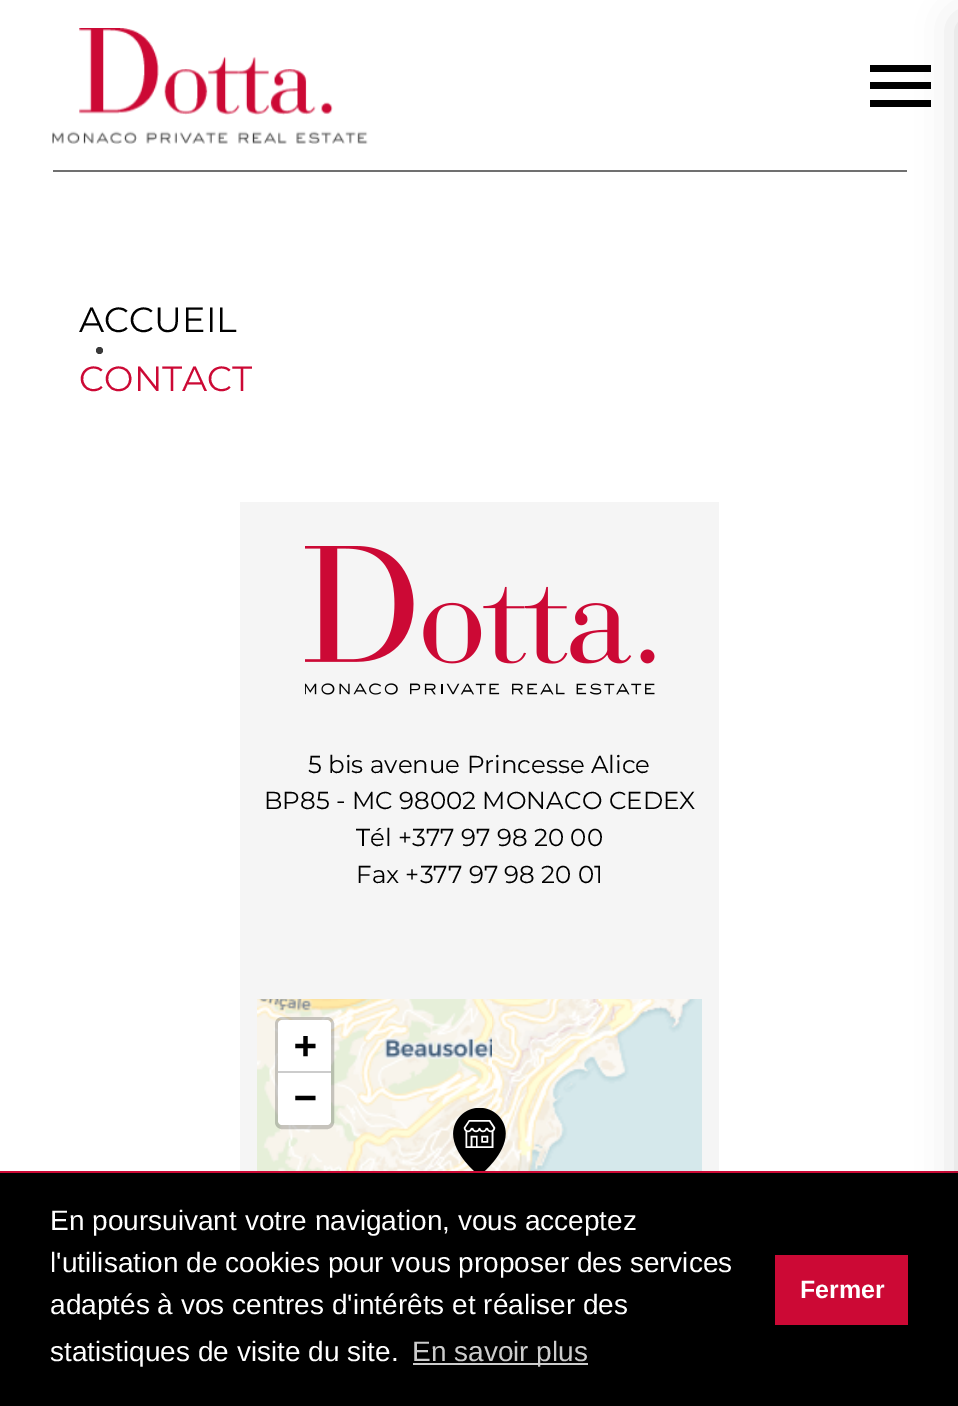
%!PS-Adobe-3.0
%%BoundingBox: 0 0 958 1406
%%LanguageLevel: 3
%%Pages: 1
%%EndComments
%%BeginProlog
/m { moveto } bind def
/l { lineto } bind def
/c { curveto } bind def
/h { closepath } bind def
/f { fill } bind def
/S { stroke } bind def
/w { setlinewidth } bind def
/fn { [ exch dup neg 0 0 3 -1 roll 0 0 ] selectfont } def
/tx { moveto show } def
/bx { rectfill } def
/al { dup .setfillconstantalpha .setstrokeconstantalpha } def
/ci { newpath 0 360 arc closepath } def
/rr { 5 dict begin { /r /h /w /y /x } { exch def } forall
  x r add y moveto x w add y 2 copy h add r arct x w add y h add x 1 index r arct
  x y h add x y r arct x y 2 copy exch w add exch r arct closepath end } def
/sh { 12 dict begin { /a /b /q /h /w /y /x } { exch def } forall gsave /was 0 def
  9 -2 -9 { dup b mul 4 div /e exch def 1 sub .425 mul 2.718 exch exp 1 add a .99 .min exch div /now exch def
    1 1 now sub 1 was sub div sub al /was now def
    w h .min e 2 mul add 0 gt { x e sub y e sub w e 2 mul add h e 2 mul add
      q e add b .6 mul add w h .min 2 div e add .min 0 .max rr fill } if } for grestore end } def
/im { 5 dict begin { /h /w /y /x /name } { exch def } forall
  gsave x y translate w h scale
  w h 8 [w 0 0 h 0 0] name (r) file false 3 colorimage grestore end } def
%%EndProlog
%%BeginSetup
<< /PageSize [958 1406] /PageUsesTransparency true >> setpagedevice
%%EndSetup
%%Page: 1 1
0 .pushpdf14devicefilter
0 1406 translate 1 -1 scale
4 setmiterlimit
1 setgray
0 0 958 1406 bx
0 setgray
870 65 61 7 bx
870 82 61 7 bx
870 100 61 7 bx
0.439 setgray
53 170 854 2 bx
0 setgray
0 1173 958 233 bx
0.8 0.035 0.208 setrgbcolor
0 1171 958 2 bx
775 1255 133 70 bx
0 setgray
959 21 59 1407 0 20 0.16 sh
(image0.raw) 52 28 316 116 im
/Montserrat-Thin 35 fn
(ACCUEIL) 79 332 tx
0.227 setgray
99.5 350.5 3.5 ci f
0.8 0.035 0.208 setrgbcolor
(CONTACT) 79 391 tx
0.961 setgray
240 502 479 669 bx
(image1.raw) 305 546 350 149 im
/Montserrat-Thin 24.5 fn
0 setgray
(5 bis avenue Princesse Alice) 308 773 tx
(BP85 - MC 98002 MONACO CEDEX) 264 809 tx
(Tél +377 97 98 20 00) 356 846 tx
(Fax +377 97 98 20 01) 356 883 tx
(image2.raw) 257 999 235 172 im
(image3.raw) 492 999 210 172 im
(image4.raw) 453 1108 53 63 im
0.2 al
4 w
277 1019 55 108 5 rr S
1 al
1 setgray
282 1020 m 327 1020 l 329 1020 331 1022 331 1024 c 331 1073 l 278 1073 l 278 1024 l 278 1022 280 1020 282 1020 c h f
0.8 setgray
278 1071 53 2 bx
/DejaVuSansMono-Bold 38 fn
0 setgray
(+) 294 1058 tx
1 setgray
278 1073 m 331 1073 l 331 1121 l 331 1123 329 1125 327 1125 c 282 1125 l 280 1125 278 1123 278 1121 c h f
0 setgray
(−) 294 1110 tx
/LiberationSans-Regular 28 fn
1 setgray
(En poursuivant votre navigation, vous acceptez) 50 1230 tx
(l'utilisation de cookies pour vous proposer des services) 50 1272 tx
(adaptés à vos centres d'intérêts et réaliser des) 50 1314 tx
(statistiques de visite du site.) 50 1361 tx
0.8 setgray
413 1363 175 2 bx
(En savoir plus) 412 1361 tx
/LiberationSans-Bold 25 fn
1 setgray
(Fermer) 800 1298 tx
.poppdf14devicefilter showpage
%%EOF
